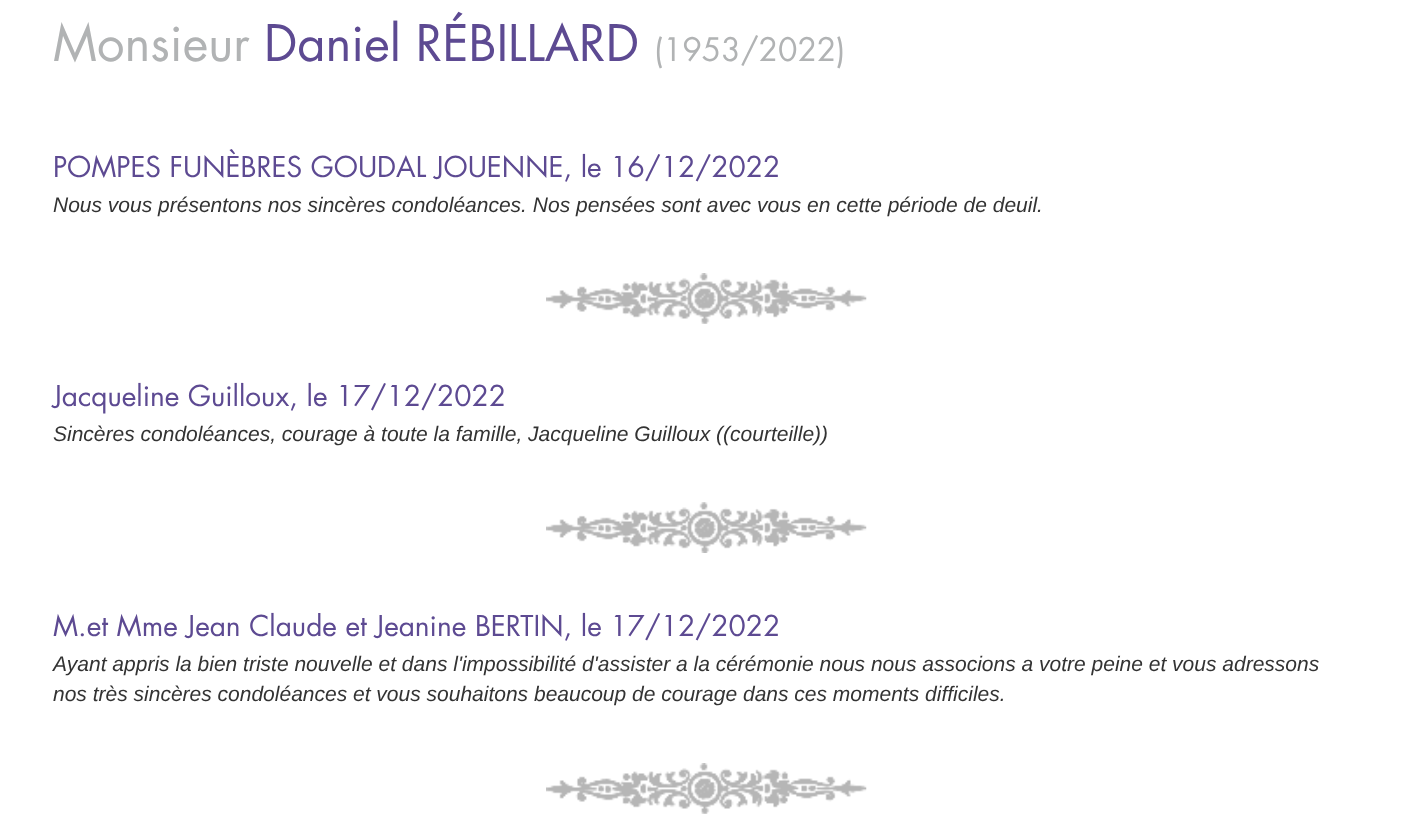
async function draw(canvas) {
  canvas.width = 1411;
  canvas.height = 840;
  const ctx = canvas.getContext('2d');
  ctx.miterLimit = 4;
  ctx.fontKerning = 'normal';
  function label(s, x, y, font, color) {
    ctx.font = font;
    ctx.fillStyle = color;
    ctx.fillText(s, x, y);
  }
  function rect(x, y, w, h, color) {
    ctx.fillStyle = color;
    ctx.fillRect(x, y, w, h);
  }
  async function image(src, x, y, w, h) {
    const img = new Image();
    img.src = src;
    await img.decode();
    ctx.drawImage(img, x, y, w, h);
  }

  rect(0, 0, 1411, 840, '#fff');
  label('Monsieur', 53, 61, '49px Futura', '#b1b3b4');
  label('Daniel RÉBILLARD', 264, 61, '49px Futura', '#5d4a92');
  label('(1953/2022)', 654, 61, '31.5px Futura', '#b1b3b4');
  label('POMPES FUNÈBRES GOUDAL JOUENNE, le 16/12/2022', 53, 177, '28px Futura', '#5d4a92');
  label('Nous vous présentons nos sincères condoléances. Nos pensées sont avec vous en cette période de deuil.', 53, 212, 'italic 21px Liberation Sans', '#333');
  await image('assets/img1.png', 546, 273, 321, 51);
  label('Jacqueline Guilloux, le 17/12/2022', 53, 406, '28px Futura', '#5d4a92');
  label('Sincères condoléances, courage à toute la famille, Jacqueline Guilloux ((courteille))', 53, 441, 'italic 21px Liberation Sans', '#333');
  await image('assets/img2.png', 546, 502, 321, 51);
  label('M.et Mme Jean Claude et Jeanine BERTIN, le 17/12/2022', 53, 636, '28px Futura', '#5d4a92');
  label('Ayant appris la bien triste nouvelle et dans l\'impossibilité d\'assister a la cérémonie nous nous associons a votre peine et vous adressons', 53, 671, 'italic 21px Liberation Sans', '#333');
  label('nos très sincères condoléances et vous souhaitons beaucoup de courage dans ces moments difficiles.', 53, 701, 'italic 21px Liberation Sans', '#333');
  await image('assets/img1.png', 546, 763, 321, 51);
}

draw(document.querySelector('canvas'));
